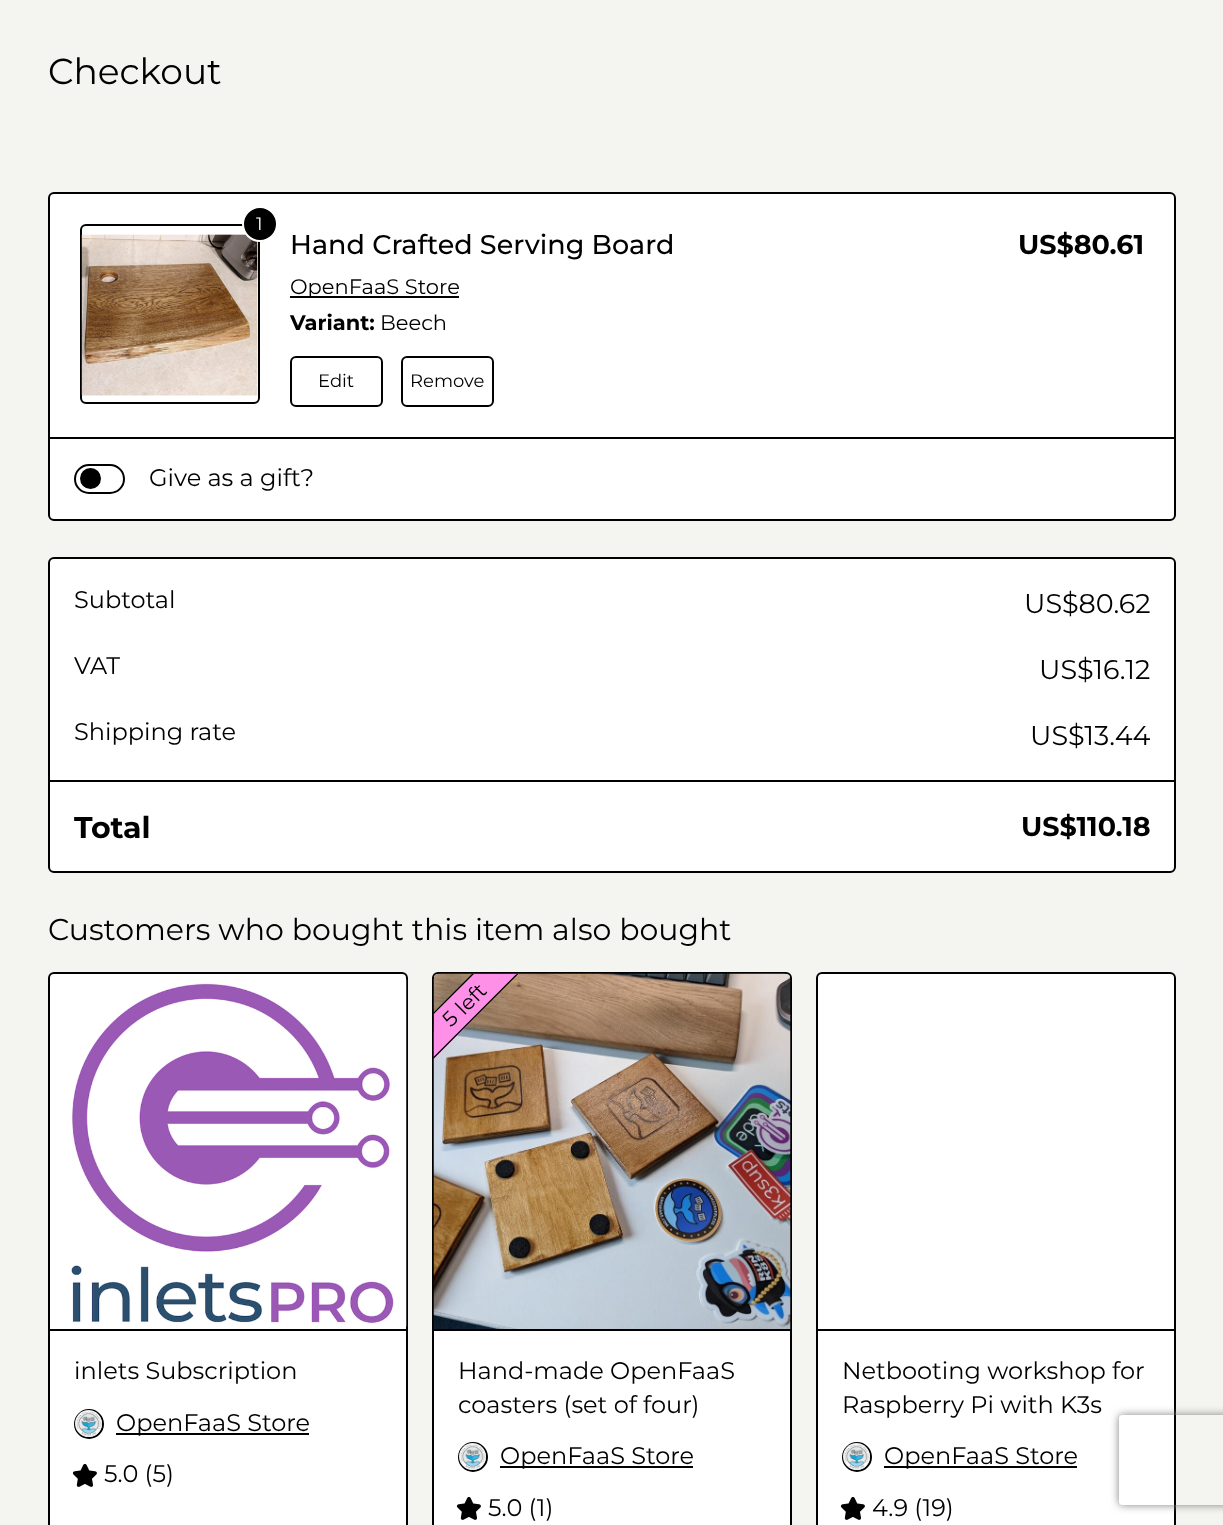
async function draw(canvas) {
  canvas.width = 1223;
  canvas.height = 1525;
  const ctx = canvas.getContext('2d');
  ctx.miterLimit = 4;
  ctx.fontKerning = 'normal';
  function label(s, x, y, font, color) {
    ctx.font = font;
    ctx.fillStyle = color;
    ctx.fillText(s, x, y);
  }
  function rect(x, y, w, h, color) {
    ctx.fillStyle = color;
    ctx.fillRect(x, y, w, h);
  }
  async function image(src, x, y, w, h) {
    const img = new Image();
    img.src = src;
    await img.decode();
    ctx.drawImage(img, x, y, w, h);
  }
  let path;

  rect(0, 0, 1223, 1525, '#f4f4f0');
  label('Checkout', 48, 84, '36px Montserrat', '#000');
  ctx.fillStyle = '#fff';
  ctx.beginPath();
  ctx.roundRect(49, 193, 1126, 327, 5);
  ctx.fill();
  ctx.strokeStyle = '#000';
  ctx.lineWidth = 2;
  ctx.stroke();
  ctx.beginPath();
  ctx.roundRect(81, 225, 178, 178, 5);
  ctx.stroke();
  await image('assets/img1.png', 81, 234, 177, 162);
  ctx.fillStyle = '#000';
  ctx.beginPath();
  ctx.arc(260, 224, 17, 0, 2 * Math.PI);
  ctx.fill();
  ctx.strokeStyle = '#fff';
  ctx.stroke();
  label('1', 256, 230, '18px Montserrat', '#fff');
  label('Hand Crafted Serving Board', 290, 254, '500 27px Montserrat', '#000');
  rect(290, 296, 169, 2, '#000');
  label('OpenFaaS Store', 290, 294, '21px Montserrat', '#000');
  label('Variant:', 290, 330, 'bold 21px Montserrat', '#000');
  label('Beech', 380, 330, '21px Montserrat', '#000');
  ctx.beginPath();
  ctx.roundRect(291, 357, 91, 49, 5);
  ctx.strokeStyle = '#000';
  ctx.stroke();
  label('Edit', 318, 387, '18px Montserrat', '#000');
  ctx.beginPath();
  ctx.roundRect(402, 357, 91, 49, 5);
  ctx.stroke();
  label('Remove', 410, 387, '18px Montserrat', '#000');
  label('US$80.61', 1018, 254, 'bold 27px Montserrat', '#000');
  rect(50, 437, 1125, 2, '#000');
  ctx.beginPath();
  ctx.roundRect(75, 465, 49, 28, 14);
  ctx.stroke();
  ctx.beginPath();
  ctx.arc(90.5, 478.5, 10.5, 0, 2 * Math.PI);
  ctx.fill();
  label('Give as a gift?', 149, 486, '24px Montserrat', '#000');
  ctx.fillStyle = '#fff';
  ctx.beginPath();
  ctx.roundRect(49, 558, 1126, 314, 5);
  ctx.fill();
  ctx.stroke();
  label('Subtotal', 74, 608, '24px Montserrat', '#000');
  label('US$80.62', 1024, 613, '27px Montserrat', '#000');
  label('VAT', 74, 674, '24px Montserrat', '#000');
  label('US$16.12', 1039, 679, '27px Montserrat', '#000');
  label('Shipping rate', 74, 740, '24px Montserrat', '#000');
  label('US$13.44', 1030, 745, '27px Montserrat', '#000');
  rect(50, 780, 1125, 2, '#000');
  label('Total', 74, 838, 'bold 30px Montserrat', '#000');
  label('US$110.18', 1021, 836, 'bold 27px Montserrat', '#000');
  label('Customers who bought this item also bought', 48, 940, '30px Montserrat', '#000');
  ctx.fillStyle = '#fff';
  path = new Path2D('M54 972H402C405.5 972 408 974.5 408 978V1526H48V978C48 974.5 50.5 972 54 972Z');
  ctx.fill(path);
  ctx.beginPath();
  ctx.roundRect(49, 973, 358, 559, 5);
  ctx.stroke();
  rect(50, 1329, 357, 2, '#000');
  await image('assets/img2.png', 71, 979, 336, 348);
  label('inlets Subscription', 74, 1379, '24px Montserrat', '#000');
  ctx.beginPath();
  ctx.arc(89, 1424, 14, 0, 2 * Math.PI);
  ctx.stroke();
  await image('assets/img3.png', 75, 1410, 27, 27);
  rect(116, 1433, 193, 2, '#000');
  label('OpenFaaS Store', 116, 1431, '24px Montserrat', '#000');
  await image('assets/img4.png', 72, 1463, 25, 24);
  label('5.0 (5)', 104, 1482, '24px Montserrat', '#000');
  ctx.fillStyle = '#fff';
  path = new Path2D('M438 972H786C789.5 972 792 974.5 792 978V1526H432V978C432 974.5 434.5 972 438 972Z');
  ctx.fill(path);
  ctx.beginPath();
  ctx.roundRect(433, 973, 358, 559, 5);
  ctx.stroke();
  rect(434, 1329, 357, 2, '#000');
  await image('assets/img5.png', 433, 973, 358, 356);
  ctx.fillStyle = '#ff90e8';
  path = new Path2D('M434 1059V1012L472 974H518Z');
  ctx.fill(path);
  ctx.save();
  path = new Path2D('M433.5 1012.5L471.5 974H518.5L433.5 1059Z');
  ctx.clip(path);
  path = new Path2D('M411 1035.5L495 952L517.5 974L433.5 1058Z');
  ctx.lineWidth = 1.5;
  ctx.stroke(path);
  ctx.restore();
  ctx.font = '21px Montserrat';
  ctx.fillStyle = '#000';
  ctx.save();
  ctx.translate(464, 1016);
  ctx.rotate(-45 * Math.PI / 180);
  ctx.fillText('left', 0, 0);
  ctx.restore();
  ctx.save();
  ctx.translate(451, 1028);
  ctx.rotate(-45 * Math.PI / 180);
  ctx.fillText('5', 0, 0);
  ctx.restore();
  label('Hand-made OpenFaaS', 458, 1379, '24px Montserrat', '#000');
  label('coasters (set of four)', 458, 1413, '24px Montserrat', '#000');
  ctx.beginPath();
  ctx.arc(473, 1457, 14, 0, 2 * Math.PI);
  ctx.stroke();
  await image('assets/img6.png', 459, 1443, 27, 27);
  rect(500, 1466, 193, 2, '#000');
  label('OpenFaaS Store', 500, 1464, '24px Montserrat', '#000');
  await image('assets/img4.png', 456, 1496, 25, 24);
  label('5.0 (1)', 488, 1516, '24px Montserrat', '#000');
  ctx.fillStyle = '#fff';
  path = new Path2D('M822 972H1170C1173.5 972 1176 974.5 1176 978V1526H816V978C816 974.5 818.5 972 822 972Z');
  ctx.fill(path);
  ctx.beginPath();
  ctx.roundRect(817, 973, 358, 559, 5);
  ctx.stroke();
  rect(818, 1329, 357, 2, '#000');
  label('Netbooting workshop for', 842, 1379, '24px Montserrat', '#000');
  label('Raspberry Pi with K3s', 842, 1413, '24px Montserrat', '#000');
  ctx.beginPath();
  ctx.arc(857, 1457, 14, 0, 2 * Math.PI);
  ctx.stroke();
  await image('assets/img7.png', 843, 1443, 27, 27);
  rect(884, 1466, 193, 2, '#000');
  label('OpenFaaS Store', 884, 1464, '24px Montserrat', '#000');
  await image('assets/img4.png', 840, 1496, 25, 24);
  label('4.9 (19)', 872, 1516, '24px Montserrat', '#000');
  ctx.save();
  path = new Path2D('M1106 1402H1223V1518H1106ZM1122 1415H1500C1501.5 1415 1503 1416.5 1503 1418V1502C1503 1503.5 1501.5 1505 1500 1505H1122C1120.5 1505 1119 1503.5 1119 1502V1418C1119 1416.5 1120.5 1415 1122 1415Z');
  ctx.clip(path, 'evenodd');
  ctx.fillStyle = '#808080';
  ctx.filter = 'blur(4px)';
  ctx.beginPath();
  ctx.roundRect(1119, 1415, 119, 90, 3);
  ctx.fill();
  ctx.filter = 'none';
  ctx.restore();
}

draw(document.querySelector('canvas'));
